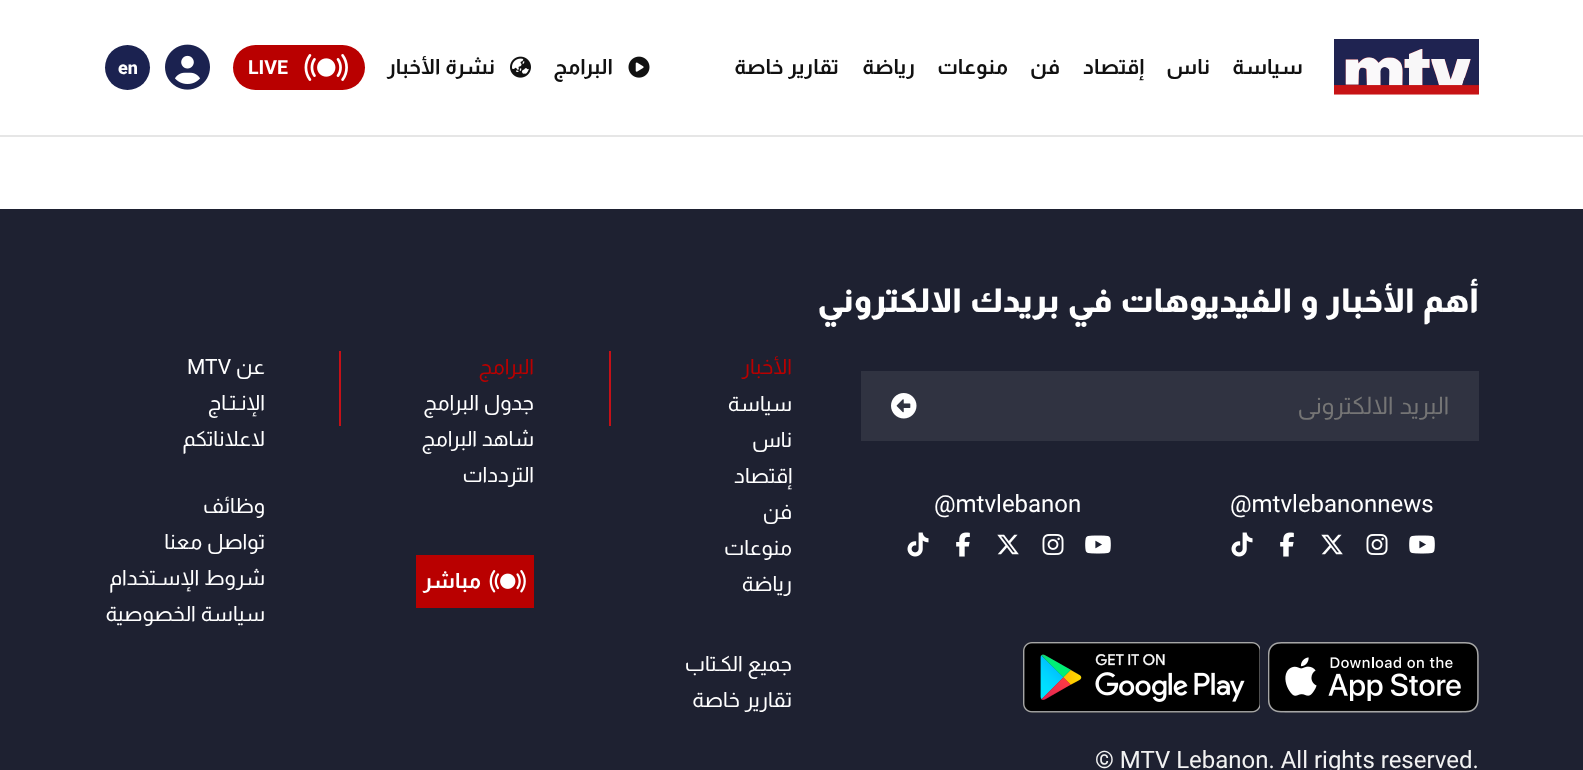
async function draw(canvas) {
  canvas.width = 1583;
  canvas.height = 770;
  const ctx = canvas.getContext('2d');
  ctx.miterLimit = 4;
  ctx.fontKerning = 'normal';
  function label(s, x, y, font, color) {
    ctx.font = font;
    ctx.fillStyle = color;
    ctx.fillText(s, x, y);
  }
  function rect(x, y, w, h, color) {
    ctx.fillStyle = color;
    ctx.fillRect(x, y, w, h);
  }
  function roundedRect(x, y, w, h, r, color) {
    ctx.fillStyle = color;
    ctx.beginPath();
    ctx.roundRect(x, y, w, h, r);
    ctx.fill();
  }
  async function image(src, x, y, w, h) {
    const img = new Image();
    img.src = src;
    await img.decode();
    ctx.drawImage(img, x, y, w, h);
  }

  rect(0, 0, 1583, 770, '#fff');
  rect(0, 135, 1583, 2, '#e6e6e6');
  await image('assets/img1.png', 1334, 39, 145, 56);
  ctx.direction = 'rtl';
  label('سياسة', 1303, 74, 'bold 21px Almarai', '#111');
  label('ناس', 1210, 74, 'bold 21px Almarai', '#111');
  label('إقتصاد', 1144, 74, 'bold 21px Almarai', '#111');
  label('فن', 1060, 74, 'bold 21px Almarai', '#111');
  label('منوعات', 1008, 74, 'bold 21px Almarai', '#111');
  label('رياضة', 915, 74, 'bold 21px Almarai', '#111');
  ctx.wordSpacing = '1px';
  label('تقارير خاصة', 839, 74, 'bold 21px Almarai', '#111');
  await image('assets/img2.png', 628, 56, 22, 22);
  ctx.wordSpacing = '0px';
  label('البرامج', 613, 74, 'bold 21px Almarai', '#111');
  await image('assets/img3.png', 510, 56, 21, 22);
  ctx.wordSpacing = '1px';
  label('نشرة الأخبار', 495, 74, 'bold 21px Almarai', '#111');
  roundedRect(233, 45, 132, 45, 22.5, '#b90000');
  await image('assets/img4.png', 304, 54, 44, 27);
  ctx.wordSpacing = '0px';
  ctx.direction = 'ltr';
  label('LIVE', 248, 74, 'bold 19.5px Roboto', '#fff');
  await image('assets/img5.png', 165, 44, 45, 46);
  ctx.fillStyle = '#1b2250';
  ctx.beginPath();
  ctx.arc(127.5, 67.5, 22.5, 0, 2 * Math.PI);
  ctx.fill();
  label('en', 118, 74, '800 18px Roboto', '#fff');
  rect(0, 209, 1583, 561, '#1e2131');
  ctx.wordSpacing = '2px';
  ctx.direction = 'rtl';
  label('أهم الأخبار و الفيديوهات في بريدك الالكتروني', 1479, 312, '800 33px Almarai', '#fff');
  rect(861, 371, 618, 70, '#303341');
  ctx.save();
  ctx.beginPath();
  ctx.rect(936, 392, 513, 28);
  ctx.clip();
  label('البريد الالكتروني', 1449, 414, '24px Almarai', '#757575');
  ctx.restore();
  await image('assets/img6.png', 891, 393, 26, 26);
  ctx.wordSpacing = '0px';
  ctx.direction = 'ltr';
  label('@mtvlebanonnews', 1230, 512, '24px Roboto', '#fff');
  await image('assets/img7.png', 1409, 535, 26, 19);
  await image('assets/img8.png', 1366, 534, 22, 21);
  await image('assets/img9.png', 1321, 534, 22, 21);
  await image('assets/img10.png', 1280, 532, 14, 25);
  await image('assets/img11.png', 1231, 532, 22, 25);
  label('@mtvlebanon', 934, 512, '24px Roboto', '#fff');
  await image('assets/img7.png', 1085, 535, 26, 19);
  await image('assets/img8.png', 1042, 534, 22, 21);
  await image('assets/img9.png', 997, 534, 22, 21);
  await image('assets/img10.png', 956, 532, 14, 25);
  await image('assets/img11.png', 907, 532, 22, 25);
  await image('assets/img12.png', 1268, 642, 211, 71);
  await image('assets/img13.png', 1023, 642, 237, 71);
  label('© MTV Lebanon. All rights reserved.', 1095, 768, '24px Roboto', '#f2f2f2');
  ctx.direction = 'rtl';
  label('الأخبار', 792, 374, '21px Almarai', '#b90000');
  label('سياسة', 792, 411, '21px Almarai', '#fff');
  label('ناس', 792, 447, '21px Almarai', '#fff');
  label('إقتصاد', 792, 483, '21px Almarai', '#fff');
  label('فن', 792, 519, '21px Almarai', '#fff');
  label('منوعات', 792, 555, '21px Almarai', '#fff');
  label('رياضة', 792, 591, '21px Almarai', '#fff');
  ctx.wordSpacing = '1px';
  label('جميع الكـتاب', 792, 671, '21px Almarai', '#fff');
  label('تقارير خاصة', 792, 707, '21px Almarai', '#fff');
  rect(609, 351, 2, 75, '#c51017');
  ctx.wordSpacing = '0px';
  label('البرامج', 534, 374, '21px Almarai', '#b90000');
  ctx.wordSpacing = '1px';
  label('جدول البرامج', 534, 410, '21px Almarai', '#fff');
  label('شاهد البرامج', 534, 446, '21px Almarai', '#fff');
  ctx.wordSpacing = '0px';
  label('الترددات', 534, 482, '21px Almarai', '#fff');
  rect(416, 555, 118, 53, '#b90000');
  await image('assets/img14.png', 489, 570, 37, 23);
  label('مباشر', 481, 588, 'bold 21px Almarai', '#fff');
  rect(339, 351, 2, 75, '#c51017');
  label('عن', 265, 374, '21px Almarai', '#fff');
  ctx.direction = 'ltr';
  label('MTV', 187, 374, '21px Roboto', '#fff');
  ctx.direction = 'rtl';
  label('الإنـتـاج', 265, 410, '21px Almarai', '#fff');
  label('لاعلاناتكم', 265, 446, '21px Almarai', '#fff');
  label('وظائف', 265, 513, '21px Almarai', '#fff');
  ctx.wordSpacing = '1px';
  label('تواصل معنا', 265, 549, '21px Almarai', '#fff');
  label('شروط الإسـتخدام', 265, 585, '21px Almarai', '#fff');
  label('سياسة الخصوصية', 265, 621, '21px Almarai', '#fff');
}

draw(document.querySelector('canvas'));
